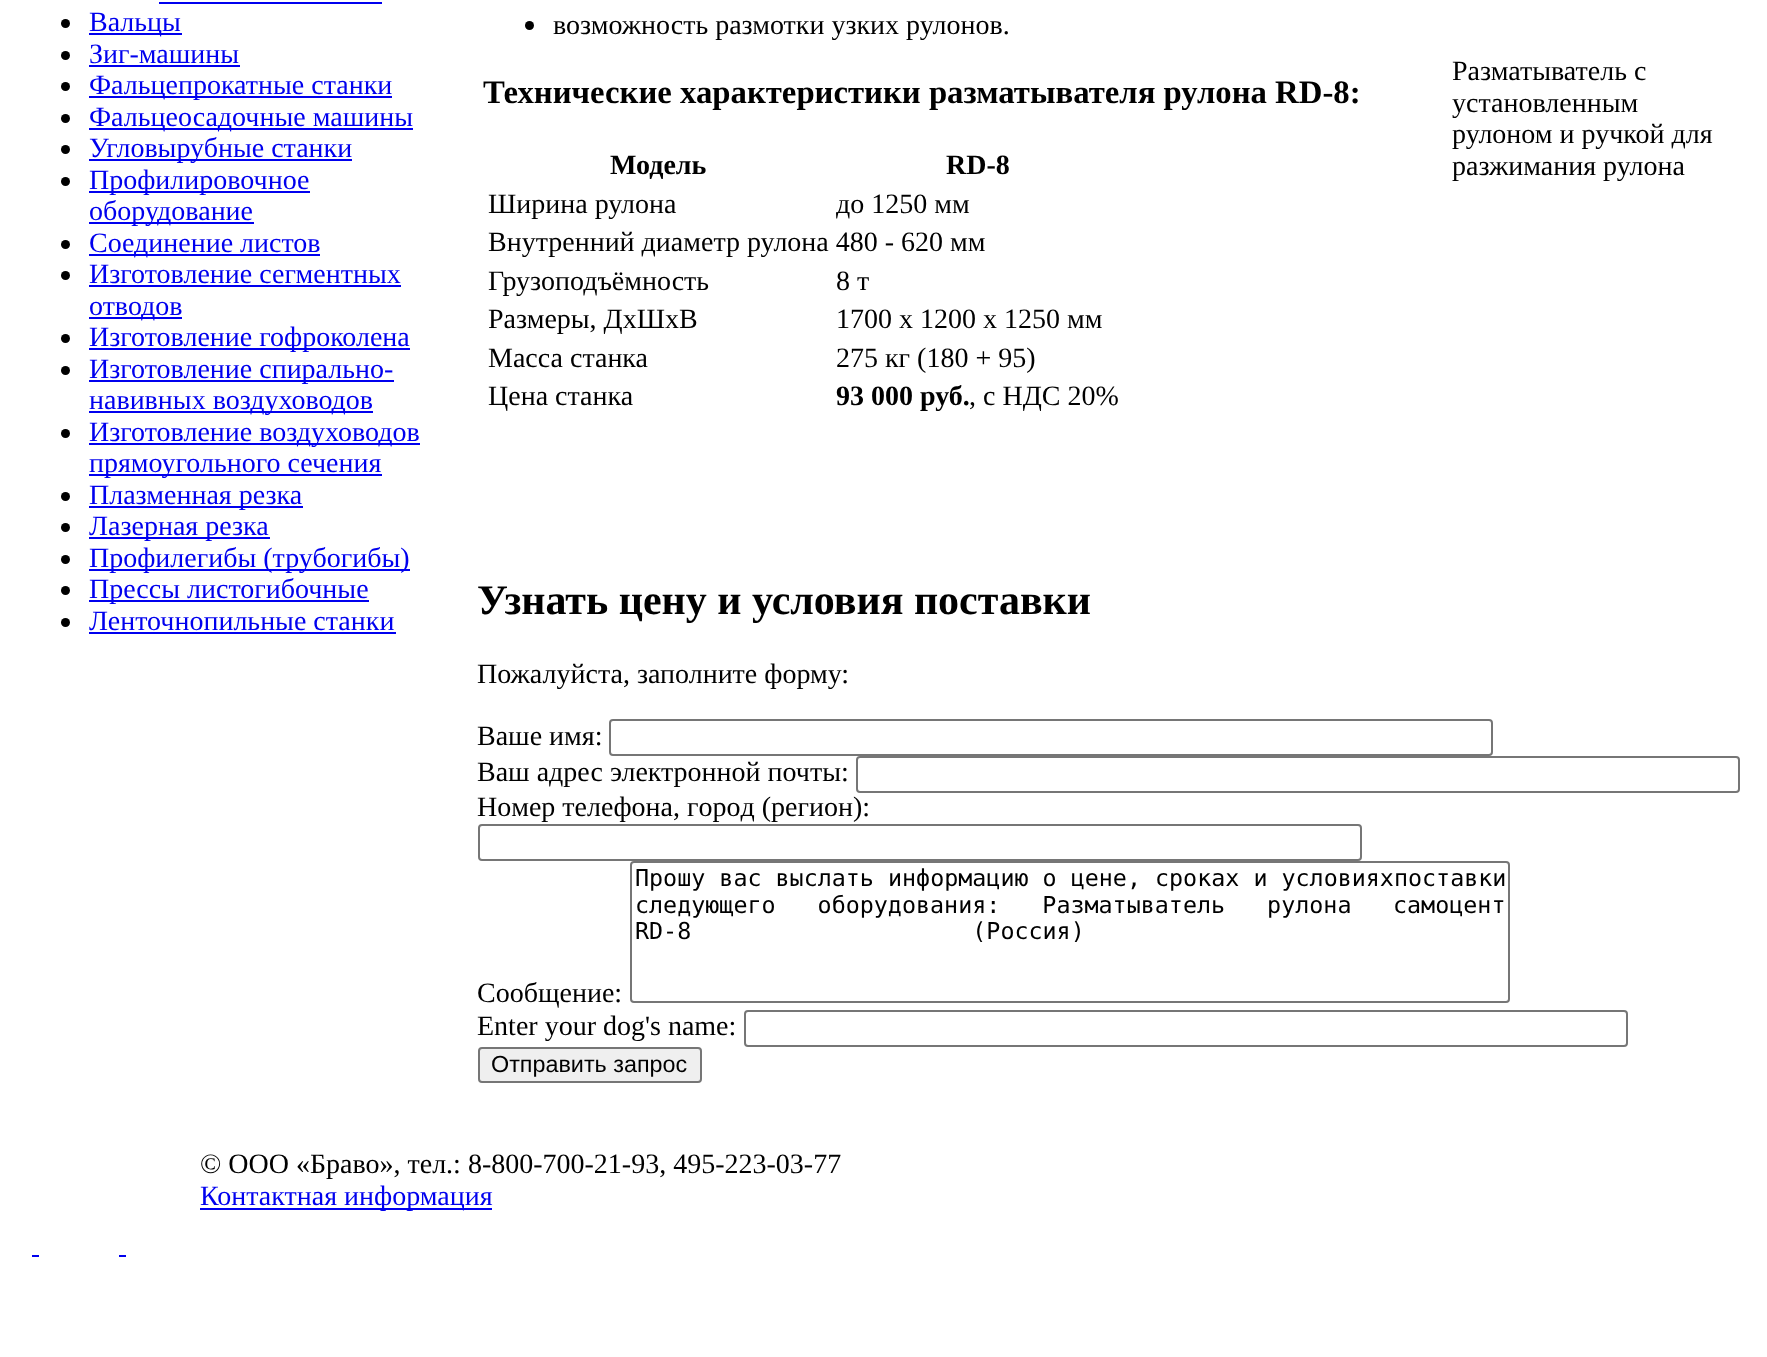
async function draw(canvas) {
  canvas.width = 1767;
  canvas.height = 1357;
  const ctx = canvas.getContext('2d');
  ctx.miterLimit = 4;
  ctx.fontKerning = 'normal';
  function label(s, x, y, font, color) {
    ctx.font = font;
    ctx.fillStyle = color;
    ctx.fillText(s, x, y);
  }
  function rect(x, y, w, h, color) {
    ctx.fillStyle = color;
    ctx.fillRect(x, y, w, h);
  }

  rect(0, 0, 1767, 1357, '#fff');
  rect(159, 2, 223, 2, '#00e');
  ctx.fillStyle = '#000';
  ctx.beginPath();
  ctx.arc(65.5, 23.5, 4.5, 0, 2 * Math.PI);
  ctx.fill();
  rect(89, 33, 93, 2, '#00e');
  label('Вальцы', 89, 31, '28px Liberation Serif', '#00e');
  ctx.fillStyle = '#000';
  ctx.beginPath();
  ctx.arc(65.5, 55.5, 4.5, 0, 2 * Math.PI);
  ctx.fill();
  label('Зиг-машины', 89, 63, '28px Liberation Serif', '#00e');
  rect(89, 65, 151, 2, '#00e');
  ctx.fillStyle = '#000';
  ctx.beginPath();
  ctx.arc(65.5, 86.5, 4.5, 0, 2 * Math.PI);
  ctx.fill();
  rect(89, 96, 303, 2, '#00e');
  label('Фальцепрокатные станки', 89, 94, '28px Liberation Serif', '#00e');
  ctx.fillStyle = '#000';
  ctx.beginPath();
  ctx.arc(65.5, 118.5, 4.5, 0, 2 * Math.PI);
  ctx.fill();
  rect(89, 128, 324, 2, '#00e');
  label('Фальцеосадочные машины', 89, 126, '28px Liberation Serif', '#00e');
  ctx.fillStyle = '#000';
  ctx.beginPath();
  ctx.arc(65.5, 149.5, 4.5, 0, 2 * Math.PI);
  ctx.fill();
  rect(89, 159, 263, 2, '#00e');
  label('Угловырубные станки', 89, 157, '28px Liberation Serif', '#00e');
  ctx.fillStyle = '#000';
  ctx.beginPath();
  ctx.arc(65.5, 181.5, 4.5, 0, 2 * Math.PI);
  ctx.fill();
  rect(89, 191, 221, 2, '#00e');
  label('Профилировочное', 89, 189, '28px Liberation Serif', '#00e');
  rect(89, 222, 165, 2, '#00e');
  label('оборудование', 89, 220, '28px Liberation Serif', '#00e');
  ctx.fillStyle = '#000';
  ctx.beginPath();
  ctx.arc(65.5, 244.5, 4.5, 0, 2 * Math.PI);
  ctx.fill();
  rect(89, 254, 231, 2, '#00e');
  label('Соединение листов', 89, 252, '28px Liberation Serif', '#00e');
  ctx.fillStyle = '#000';
  ctx.beginPath();
  ctx.arc(65.5, 275.5, 4.5, 0, 2 * Math.PI);
  ctx.fill();
  label('Изготовление сегментных', 89, 283, '28px Liberation Serif', '#00e');
  rect(89, 285, 312, 2, '#00e');
  rect(89, 317, 93, 2, '#00e');
  label('отводов', 89, 315, '28px Liberation Serif', '#00e');
  ctx.fillStyle = '#000';
  ctx.beginPath();
  ctx.arc(65.5, 338.5, 4.5, 0, 2 * Math.PI);
  ctx.fill();
  rect(89, 348, 321, 2, '#00e');
  label('Изготовление гофроколена', 89, 346, '28px Liberation Serif', '#00e');
  ctx.fillStyle = '#000';
  ctx.beginPath();
  ctx.arc(65.5, 370.5, 4.5, 0, 2 * Math.PI);
  ctx.fill();
  rect(89, 380, 305, 2, '#00e');
  label('Изготовление спирально-', 89, 378, '28px Liberation Serif', '#00e');
  rect(89, 411, 284, 2, '#00e');
  label('навивных воздуховодов', 89, 409, '28px Liberation Serif', '#00e');
  ctx.fillStyle = '#000';
  ctx.beginPath();
  ctx.arc(65.5, 433.5, 4.5, 0, 2 * Math.PI);
  ctx.fill();
  rect(89, 443, 331, 2, '#00e');
  label('Изготовление воздуховодов', 89, 441, '28px Liberation Serif', '#00e');
  rect(89, 474, 293, 2, '#00e');
  label('прямоугольного сечения', 89, 472, '28px Liberation Serif', '#00e');
  ctx.fillStyle = '#000';
  ctx.beginPath();
  ctx.arc(65.5, 496.5, 4.5, 0, 2 * Math.PI);
  ctx.fill();
  rect(89, 506, 214, 2, '#00e');
  label('Плазменная резка', 89, 504, '28px Liberation Serif', '#00e');
  ctx.fillStyle = '#000';
  ctx.beginPath();
  ctx.arc(65.5, 527.5, 4.5, 0, 2 * Math.PI);
  ctx.fill();
  rect(89, 537, 181, 2, '#00e');
  label('Лазерная резка', 89, 535, '28px Liberation Serif', '#00e');
  ctx.fillStyle = '#000';
  ctx.beginPath();
  ctx.arc(65.5, 559.5, 4.5, 0, 2 * Math.PI);
  ctx.fill();
  rect(89, 569, 321, 2, '#00e');
  label('Профилегибы (трубогибы)', 89, 567, '28px Liberation Serif', '#00e');
  ctx.fillStyle = '#000';
  ctx.beginPath();
  ctx.arc(65.5, 590.5, 4.5, 0, 2 * Math.PI);
  ctx.fill();
  rect(89, 600, 280, 2, '#00e');
  label('Прессы листогибочные', 89, 598, '28px Liberation Serif', '#00e');
  ctx.fillStyle = '#000';
  ctx.beginPath();
  ctx.arc(65.5, 622.5, 4.5, 0, 2 * Math.PI);
  ctx.fill();
  label('Ленточнопильные станки', 89, 630, '28px Liberation Serif', '#00e');
  rect(89, 632, 307, 2, '#00e');
  ctx.fillStyle = '#000';
  ctx.beginPath();
  ctx.arc(529.5, 25.5, 4.5, 0, 2 * Math.PI);
  ctx.fill();
  label('возможность размотки узких рулонов.', 553, 34, '28px Liberation Serif', '#000');
  label('Технические характеристики разматывателя рулона RD-8:', 483, 103, 'bold 32.75px Liberation Serif', '#000');
  label('Модель', 610, 174, 'bold 28px Liberation Serif', '#000');
  label('RD-8', 946, 174, 'bold 28px Liberation Serif', '#000');
  label('Ширина рулона', 488, 213, '28px Liberation Serif', '#000');
  label('до 1250 мм', 836, 213, '28px Liberation Serif', '#000');
  label('Внутренний диаметр рулона 480 - 620 мм', 488, 251, '28px Liberation Serif', '#000');
  label('Грузоподъёмность', 488, 290, '28px Liberation Serif', '#000');
  label('8 т', 836, 290, '28px Liberation Serif', '#000');
  label('Размеры, ДхШхВ', 488, 328, '28px Liberation Serif', '#000');
  label('1700 х 1200 х 1250 мм', 836, 328, '28px Liberation Serif', '#000');
  label('Масса станка', 488, 367, '28px Liberation Serif', '#000');
  label('275 кг (180 + 95)', 836, 367, '28px Liberation Serif', '#000');
  label('Цена станка', 488, 405, '28px Liberation Serif', '#000');
  label('93 000 руб.', 836, 405, 'bold 28px Liberation Serif', '#000');
  label(', с НДС 20%', 969, 405, '28px Liberation Serif', '#000');
  label('Разматыватель с', 1452, 80, '28px Liberation Serif', '#000');
  label('установленным', 1452, 112, '28px Liberation Serif', '#000');
  label('рулоном и ручкой для', 1452, 143, '28px Liberation Serif', '#000');
  label('разжимания рулона', 1452, 175, '28px Liberation Serif', '#000');
  label('Узнать цену и условия поставки', 477, 614, 'bold 42px Liberation Serif', '#000');
  label('Пожалуйста, заполните форму:', 477, 683, '28px Liberation Serif', '#000');
  label('Ваше имя:', 477, 745, '28px Liberation Serif', '#000');
  ctx.beginPath();
  ctx.roundRect(610, 720, 882, 35, 3);
  ctx.strokeStyle = '#767676';
  ctx.lineWidth = 2;
  ctx.stroke();
  label('Ваш адрес электронной почты:', 477, 781, '28px Liberation Serif', '#000');
  ctx.beginPath();
  ctx.roundRect(857, 757, 882, 35, 3);
  ctx.stroke();
  label('Hoмep телeфoна, гopoд (региoн):', 477, 816, '28px Liberation Serif', '#000');
  ctx.beginPath();
  ctx.roundRect(479, 825, 882, 35, 3);
  ctx.stroke();
  ctx.beginPath();
  ctx.roundRect(631, 862, 878, 140, 3);
  ctx.stroke();
  label('Прошу вас выслать информацию о цене, сроках и условияхпоставки', 635, 886, '23.35px DejaVu Sans Mono', '#000');
  ctx.wordSpacing = '28px';
  label('следующего оборудования: Разматыватель рулона', 635, 913, '23.35px DejaVu Sans Mono', '#000');
  ctx.wordSpacing = '0px';
  label('самоцент', 1393, 913, '23.35px DejaVu Sans Mono', '#000');
  ctx.wordSpacing = '267px';
  label('RD-8 (Россия)', 635, 939, '23.35px DejaVu Sans Mono', '#000');
  ctx.wordSpacing = '0px';
  label('Сообщение:', 477, 1002, '28px Liberation Serif', '#000');
  label('Enter your dog\'s name:', 477, 1035, '28px Liberation Serif', '#000');
  ctx.beginPath();
  ctx.roundRect(745, 1011, 882, 35, 3);
  ctx.stroke();
  ctx.fillStyle = '#efefef';
  ctx.beginPath();
  ctx.roundRect(479, 1048, 222, 34, 3);
  ctx.fill();
  ctx.stroke();
  label('Отправить запрос', 491, 1072, '23.35px Liberation Sans', '#000');
  label('© ООО «Браво», тел.: 8-800-700-21-93, 495-223-03-77', 200, 1173, '28px Liberation Serif', '#000');
  rect(200, 1208, 292, 2, '#00e');
  label('Контактная информация', 200, 1205, '28px Liberation Serif', '#00e');
  rect(32, 1255, 7, 2, '#00e');
  rect(119, 1255, 7, 2, '#00e');
}

draw(document.querySelector('canvas'));
